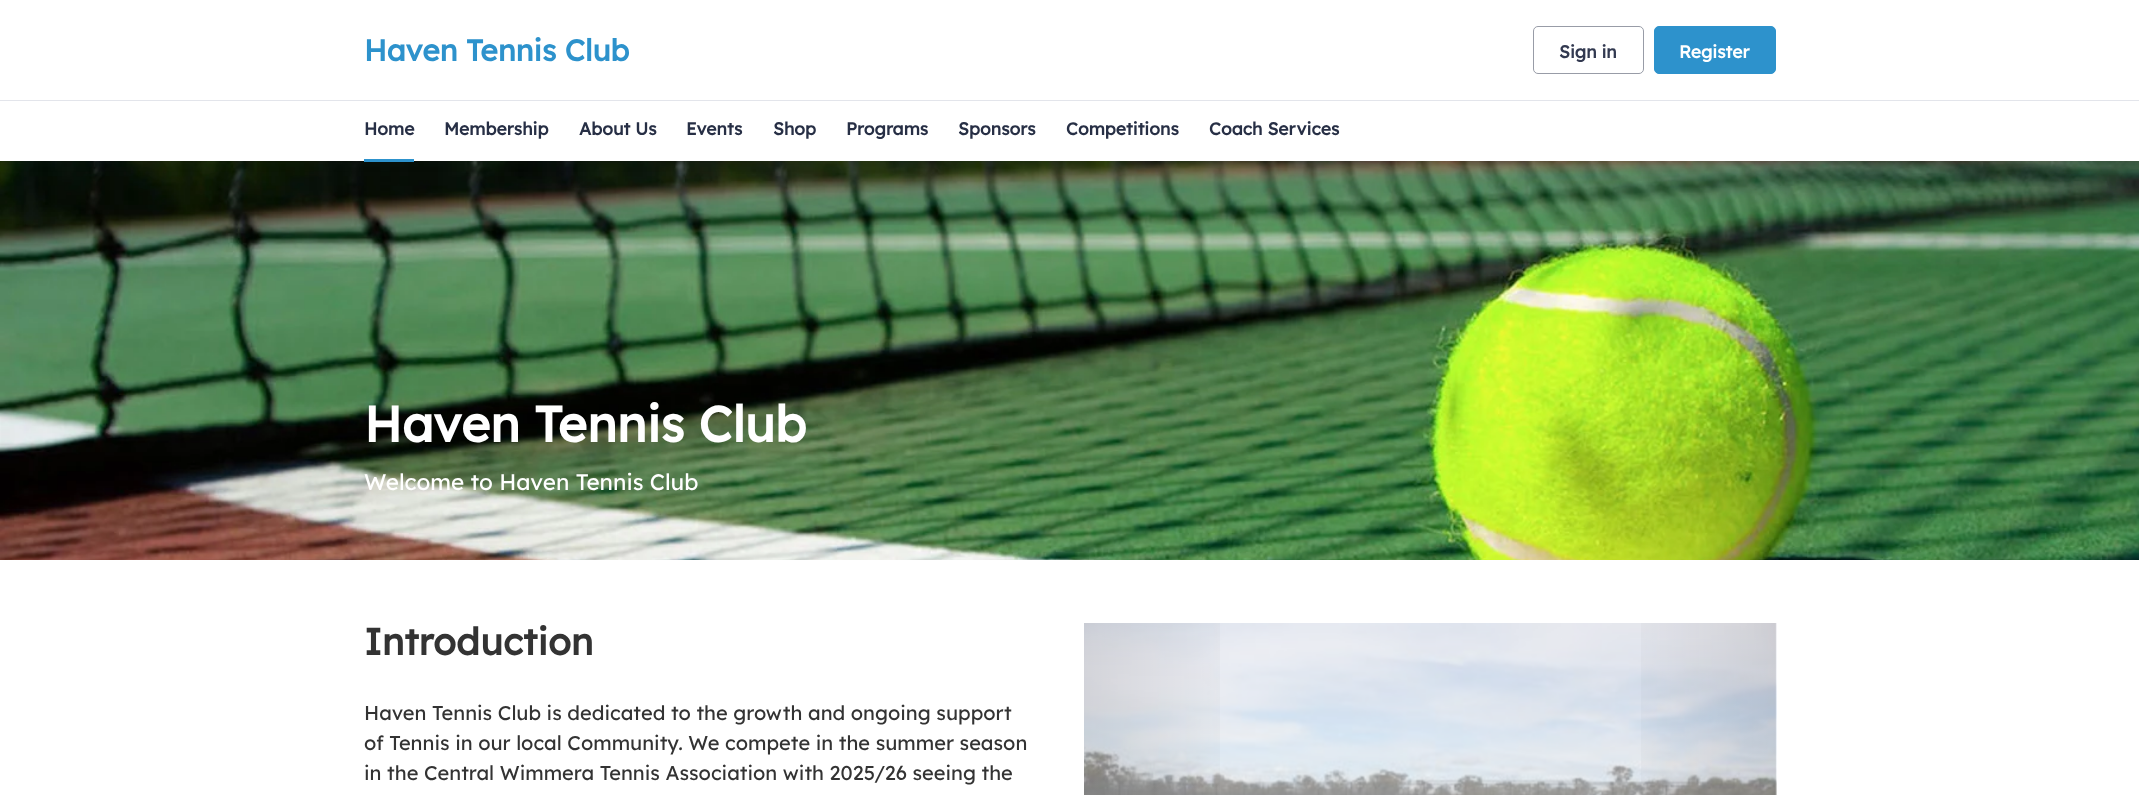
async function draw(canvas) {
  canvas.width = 2139;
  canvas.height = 795;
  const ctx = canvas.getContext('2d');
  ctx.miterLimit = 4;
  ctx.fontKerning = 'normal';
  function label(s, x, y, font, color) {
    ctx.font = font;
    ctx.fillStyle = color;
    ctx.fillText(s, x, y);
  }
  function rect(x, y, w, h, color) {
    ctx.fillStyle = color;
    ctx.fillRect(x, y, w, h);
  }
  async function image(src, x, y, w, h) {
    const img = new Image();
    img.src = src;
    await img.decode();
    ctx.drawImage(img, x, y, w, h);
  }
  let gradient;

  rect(0, 0, 2139, 795, '#fff');
  await image('assets/img1.png', 0, 161, 2139, 399);
  ctx.fillStyle = '#141d370f';
  ctx.filter = 'blur(4px)';
  ctx.beginPath();
  ctx.rect(0, 3, 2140, 161);
  ctx.fill();
  ctx.filter = 'none';
  rect(0, 0, 2139, 161, '#fff');
  label('Haven Tennis Club', 364, 61, 'bold 30px Lexend', '#2d92cc');
  ctx.beginPath();
  ctx.roundRect(1533.5, 26.5, 110, 47, 4.5);
  ctx.strokeStyle = '#989ca7';
  ctx.stroke();
  label('Sign in', 1559, 58, 'bold 17.5px Lexend', '#323950');
  ctx.fillStyle = '#2d92cc';
  ctx.beginPath();
  ctx.roundRect(1654.5, 26.5, 121, 47, 4.5);
  ctx.fill();
  ctx.strokeStyle = '#2d92cc';
  ctx.stroke();
  label('Register', 1679, 58, 'bold 17.5px Lexend', '#fff');
  rect(0, 100, 2139, 1, '#e3e5eb');
  rect(364, 159, 50, 3, '#2d92cc');
  label('Home', 364, 135, 'bold 17.5px Lexend', '#272f45');
  label('Membership', 444, 135, 'bold 17.5px Lexend', '#272f45');
  label('About Us', 579, 135, 'bold 17.5px Lexend', '#272f45');
  label('Events', 686, 135, 'bold 17.5px Lexend', '#272f45');
  label('Shop', 773, 135, 'bold 17.5px Lexend', '#272f45');
  label('Programs', 846, 135, 'bold 17.5px Lexend', '#272f45');
  label('Sponsors', 958, 135, 'bold 17.5px Lexend', '#272f45');
  label('Competitions', 1066, 135, 'bold 17.5px Lexend', '#272f45');
  label('Coach Services', 1209, 135, 'bold 17.5px Lexend', '#272f45');
  label('Haven Tennis Club', 364, 442, 'bold 50px Lexend', '#fff');
  label('Welcome to Haven Tennis Club', 364, 490, '22.5px Lexend', '#fff');
  label('Introduction', 364, 655, 'bold 37.5px Lexend', '#333');
  label('Haven Tennis Club is dedicated to the growth and ongoing support', 364, 720, '20px Lexend', '#333');
  label('of Tennis in our local Community. We compete in the summer season', 364, 750, '20px Lexend', '#333');
  label('in the Central Wimmera Tennis Association with 2025/26 seeing the', 364, 780, '20px Lexend', '#333');
  await image('assets/img2.png', 1084, 623, 693, 172);
  gradient = ctx.createLinearGradient(1084, 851, 1258, 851);
  gradient.addColorStop(0, '#0000001a');
  gradient.addColorStop(1, '#00000000');
  ctx.fillStyle = gradient;
  ctx.fillRect(1084, 623, 136, 172);
  gradient = ctx.createLinearGradient(1776, 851, 1604, 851);
  gradient.addColorStop(0, '#0000001a');
  gradient.addColorStop(1, '#00000000');
  ctx.fillStyle = gradient;
  ctx.fillRect(1641, 623, 135, 172);
}

draw(document.querySelector('canvas'));
